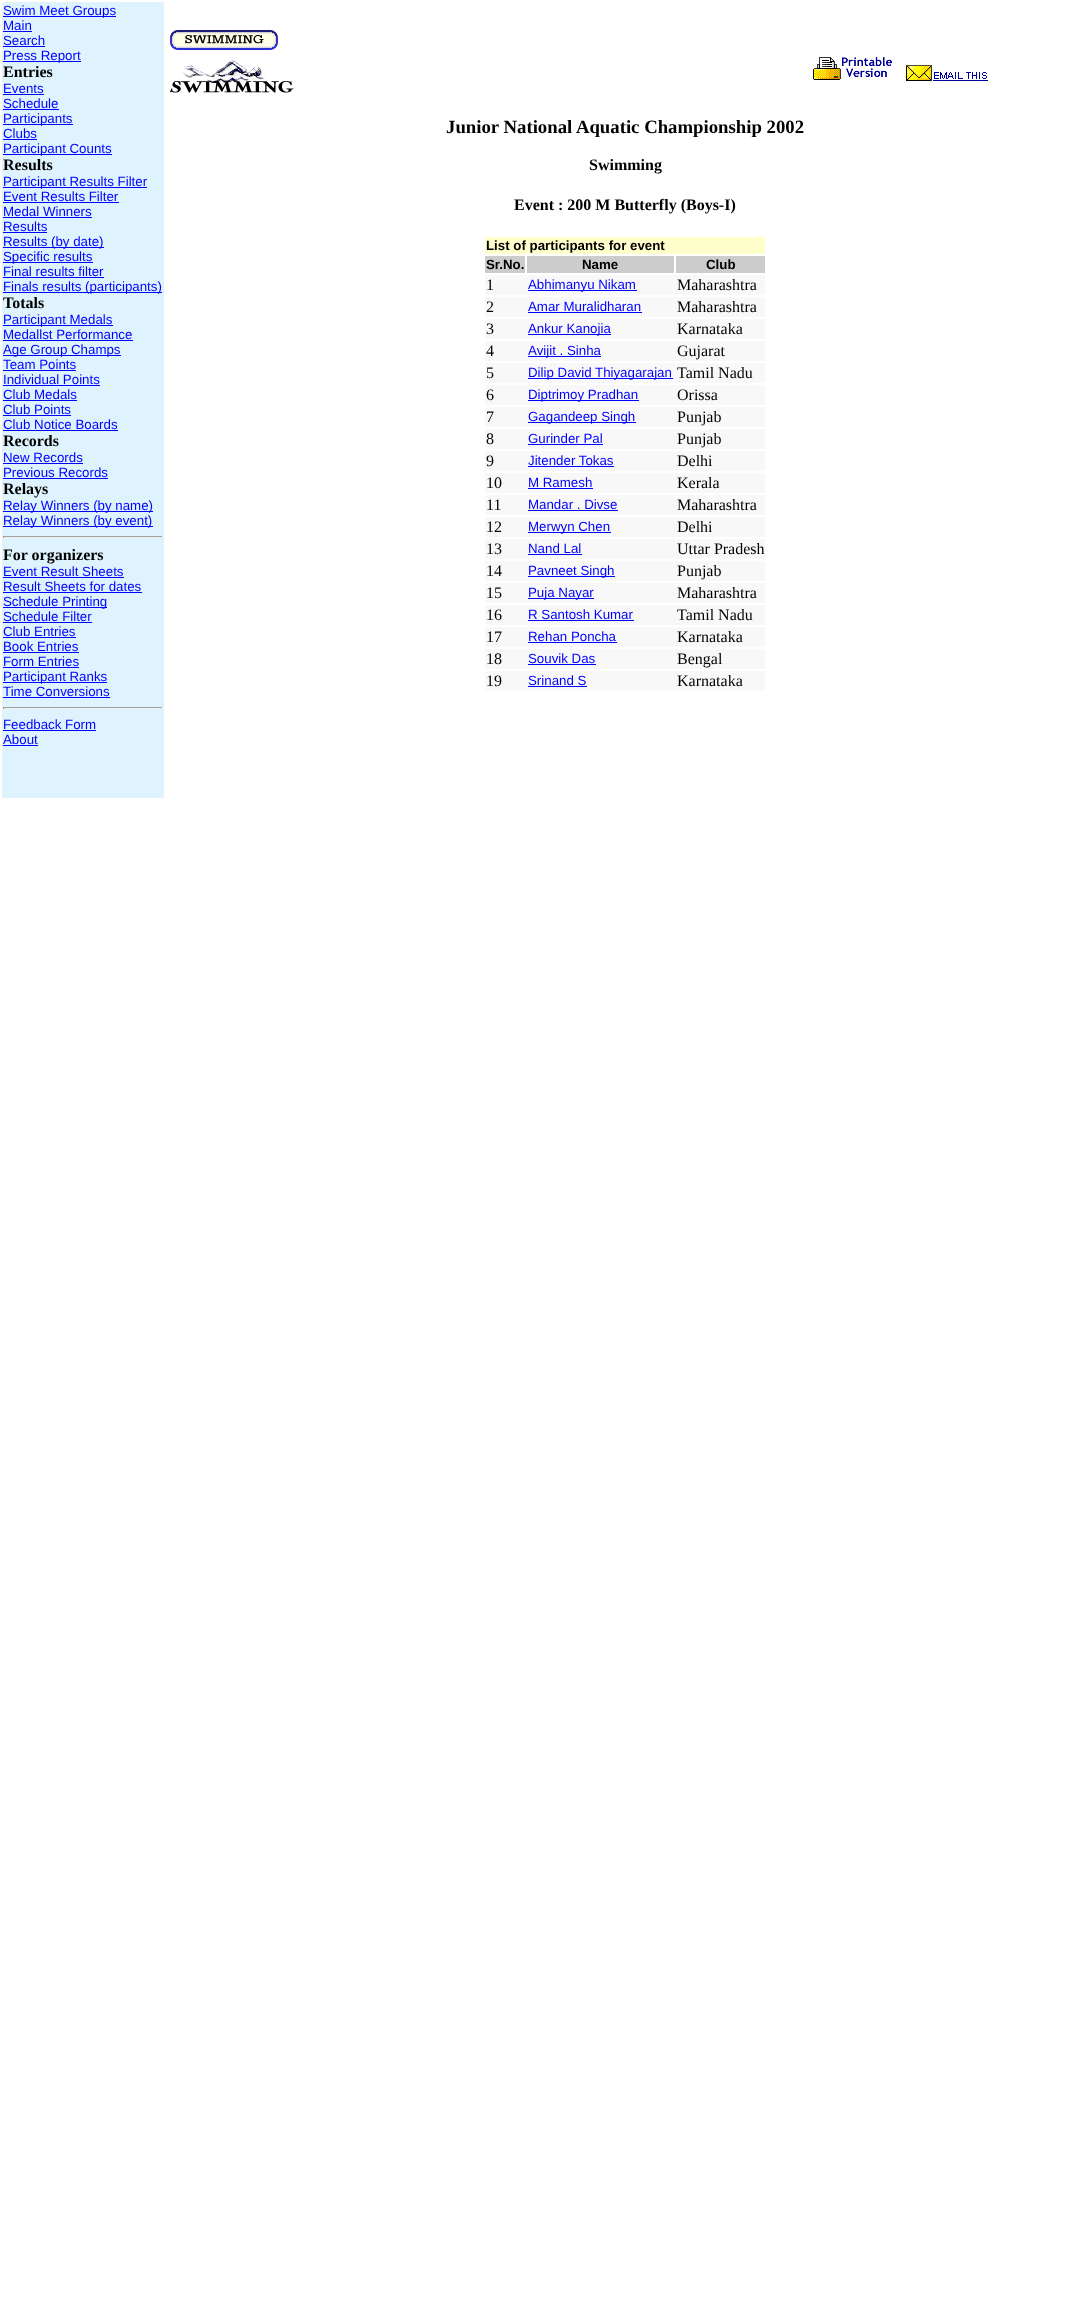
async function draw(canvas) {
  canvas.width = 1086;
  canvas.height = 2301;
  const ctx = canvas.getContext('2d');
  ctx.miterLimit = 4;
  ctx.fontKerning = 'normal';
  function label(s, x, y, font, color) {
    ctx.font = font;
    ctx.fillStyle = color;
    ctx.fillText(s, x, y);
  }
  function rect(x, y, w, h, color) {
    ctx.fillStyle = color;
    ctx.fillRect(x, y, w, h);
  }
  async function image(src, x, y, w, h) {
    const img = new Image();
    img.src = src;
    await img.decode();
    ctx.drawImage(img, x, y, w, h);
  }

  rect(0, 0, 1086, 2301, '#fff');
  rect(2, 2, 162, 796, '#def3fe');
  rect(3, 16, 113, 1, '#00f');
  label('Swim Meet Groups', 3, 15, '13.3px Liberation Sans', '#00f');
  label('Main', 3, 30, '13.3px Liberation Sans', '#00f');
  rect(3, 31, 29, 1, '#00f');
  label('Search', 3, 45, '13.3px Liberation Sans', '#00f');
  rect(3, 46, 42, 1, '#00f');
  rect(3, 61, 78, 1, '#00f');
  label('Press Report', 3, 60, '13.3px Liberation Sans', '#00f');
  label('Entries', 3, 77, 'bold 16px Liberation Serif', '#000');
  label('Events', 3, 93, '13.3px Liberation Sans', '#00f');
  rect(3, 94, 41, 1, '#00f');
  label('Schedule', 3, 108, '13.3px Liberation Sans', '#00f');
  rect(3, 109, 56, 1, '#00f');
  rect(3, 124, 70, 1, '#00f');
  label('Participants', 3, 123, '13.3px Liberation Sans', '#00f');
  label('Clubs', 3, 138, '13.3px Liberation Sans', '#00f');
  rect(3, 139, 34, 1, '#00f');
  rect(3, 154, 109, 1, '#00f');
  label('Participant Counts', 3, 153, '13.3px Liberation Sans', '#00f');
  label('Results', 3, 170, 'bold 16px Liberation Serif', '#000');
  rect(3, 187, 144, 1, '#00f');
  label('Participant Results Filter', 3, 186, '13.3px Liberation Sans', '#00f');
  label('Event Results Filter', 3, 201, '13.3px Liberation Sans', '#00f');
  rect(3, 202, 116, 1, '#00f');
  label('Medal Winners', 3, 216, '13.3px Liberation Sans', '#00f');
  rect(3, 217, 89, 1, '#00f');
  label('Results', 3, 231, '13.3px Liberation Sans', '#00f');
  rect(3, 232, 44, 1, '#00f');
  rect(3, 247, 101, 1, '#00f');
  label('Results (by date)', 3, 246, '13.3px Liberation Sans', '#00f');
  rect(3, 262, 90, 1, '#00f');
  label('Specific results', 3, 261, '13.3px Liberation Sans', '#00f');
  label('Final results filter', 3, 276, '13.3px Liberation Sans', '#00f');
  rect(3, 277, 101, 1, '#00f');
  rect(3, 292, 159, 1, '#00f');
  label('Finals results (participants)', 3, 291, '13.3px Liberation Sans', '#00f');
  label('Totals', 3, 308, 'bold 16px Liberation Serif', '#000');
  rect(3, 325, 110, 1, '#00f');
  label('Participant Medals', 3, 324, '13.3px Liberation Sans', '#00f');
  label('Medallst Performance', 3, 339, '13.3px Liberation Sans', '#00f');
  rect(3, 340, 130, 1, '#00f');
  rect(3, 355, 118, 1, '#00f');
  label('Age Group Champs', 3, 354, '13.3px Liberation Sans', '#00f');
  label('Team Points', 3, 369, '13.3px Liberation Sans', '#00f');
  rect(3, 370, 73, 1, '#00f');
  label('Individual Points', 3, 384, '13.3px Liberation Sans', '#00f');
  rect(3, 385, 97, 1, '#00f');
  label('Club Medals', 3, 399, '13.3px Liberation Sans', '#00f');
  rect(3, 400, 74, 1, '#00f');
  label('Club Points', 3, 414, '13.3px Liberation Sans', '#00f');
  rect(3, 415, 68, 1, '#00f');
  label('Club Notice Boards', 3, 429, '13.3px Liberation Sans', '#00f');
  rect(3, 430, 115, 1, '#00f');
  label('Records', 3, 446, 'bold 16px Liberation Serif', '#000');
  label('New Records', 3, 462, '13.3px Liberation Sans', '#00f');
  rect(3, 463, 80, 1, '#00f');
  label('Previous Records', 3, 477, '13.3px Liberation Sans', '#00f');
  rect(3, 478, 105, 1, '#00f');
  label('Relays', 3, 494, 'bold 16px Liberation Serif', '#000');
  rect(3, 511, 150, 1, '#00f');
  label('Relay Winners (by name)', 3, 510, '13.3px Liberation Sans', '#00f');
  rect(3, 526, 150, 1, '#00f');
  label('Relay Winners (by event)', 3, 525, '13.3px Liberation Sans', '#00f');
  rect(3, 536, 160, 1, '#9f9f9f');
  rect(162, 536, 1, 2, '#eee');
  rect(3, 537, 160, 1, '#eee');
  rect(3, 536, 1, 2, '#9f9f9f');
  label('For organizers', 3, 560, 'bold 16px Liberation Serif', '#000');
  label('Event Result Sheets', 3, 576, '13.3px Liberation Sans', '#00f');
  rect(3, 577, 121, 1, '#00f');
  label('Result Sheets for dates', 3, 591, '13.3px Liberation Sans', '#00f');
  rect(3, 592, 139, 1, '#00f');
  rect(3, 607, 104, 1, '#00f');
  label('Schedule Printing', 3, 606, '13.3px Liberation Sans', '#00f');
  label('Schedule Filter', 3, 621, '13.3px Liberation Sans', '#00f');
  rect(3, 622, 89, 1, '#00f');
  label('Club Entries', 3, 636, '13.3px Liberation Sans', '#00f');
  rect(3, 637, 73, 1, '#00f');
  label('Book Entries', 3, 651, '13.3px Liberation Sans', '#00f');
  rect(3, 652, 76, 1, '#00f');
  label('Form Entries', 3, 666, '13.3px Liberation Sans', '#00f');
  rect(3, 667, 76, 1, '#00f');
  rect(3, 682, 104, 1, '#00f');
  label('Participant Ranks', 3, 681, '13.3px Liberation Sans', '#00f');
  label('Time Conversions', 3, 696, '13.3px Liberation Sans', '#00f');
  rect(3, 697, 107, 1, '#00f');
  rect(3, 707, 160, 1, '#9f9f9f');
  rect(162, 707, 1, 2, '#eee');
  rect(3, 708, 160, 1, '#eee');
  rect(3, 707, 1, 2, '#9f9f9f');
  label('Feedback Form', 3, 729, '13.3px Liberation Sans', '#00f');
  rect(3, 730, 93, 1, '#00f');
  label('About', 3, 744, '13.3px Liberation Sans', '#00f');
  rect(3, 745, 35, 1, '#00f');
  await image('assets/img1.png', 170, 30, 108, 20);
  await image('assets/img2.png', 170, 56, 124, 37);
  await image('assets/img3.png', 813, 57, 79, 23);
  await image('assets/img4.png', 906, 65, 82, 16);
  label('Junior National Aquatic Championship 2002', 446, 133, 'bold 18.75px Liberation Serif', '#000');
  label('Swimming', 589, 170, 'bold 16px Liberation Serif', '#000');
  label('Event : 200 M Butterfly (Boys-I)', 514, 210, 'bold 16px Liberation Serif', '#000');
  rect(485, 237, 280, 17, '#ffc');
  label('List of participants for event', 486, 250, 'bold 13.3px Liberation Sans', '#000');
  rect(485, 256, 40, 17, '#ccc');
  label('Sr.No.', 486, 269, 'bold 13.3px Liberation Sans', '#000');
  rect(527, 256, 147, 17, '#ccc');
  label('Name', 582, 269, 'bold 13.3px Liberation Sans', '#000');
  rect(676, 256, 89, 17, '#ccc');
  label('Club', 706, 269, 'bold 13.3px Liberation Sans', '#000');
  rect(485, 275, 280, 20, '#f8f8f8');
  label('1', 486, 290, '16px Liberation Serif', '#000');
  rect(528, 290, 109, 1, '#00f');
  label('Abhimanyu Nikam', 528, 289, '13.3px Liberation Sans', '#00f');
  label('Maharashtra', 677, 290, '16px Liberation Serif', '#000');
  rect(485, 297, 280, 20, '#f8f8f8');
  label('2', 486, 312, '16px Liberation Serif', '#000');
  label('Amar Muralidharan', 528, 311, '13.3px Liberation Sans', '#00f');
  rect(528, 312, 114, 1, '#00f');
  label('Maharashtra', 677, 312, '16px Liberation Serif', '#000');
  rect(485, 319, 280, 20, '#f8f8f8');
  label('3', 486, 334, '16px Liberation Serif', '#000');
  rect(528, 334, 83, 1, '#00f');
  label('Ankur Kanojia', 528, 333, '13.3px Liberation Sans', '#00f');
  label('Karnataka', 677, 334, '16px Liberation Serif', '#000');
  rect(485, 341, 280, 20, '#f8f8f8');
  label('4', 486, 356, '16px Liberation Serif', '#000');
  rect(528, 356, 73, 1, '#00f');
  label('Avijit . Sinha', 528, 355, '13.3px Liberation Sans', '#00f');
  label('Gujarat', 677, 356, '16px Liberation Serif', '#000');
  rect(485, 363, 280, 20, '#f8f8f8');
  label('5', 486, 378, '16px Liberation Serif', '#000');
  rect(528, 378, 145, 1, '#00f');
  label('Dilip David Thiyagarajan', 528, 377, '13.3px Liberation Sans', '#00f');
  label('Tamil Nadu', 677, 378, '16px Liberation Serif', '#000');
  rect(485, 385, 280, 20, '#f8f8f8');
  label('6', 486, 400, '16px Liberation Serif', '#000');
  rect(528, 400, 111, 1, '#00f');
  label('Diptrimoy Pradhan', 528, 399, '13.3px Liberation Sans', '#00f');
  label('Orissa', 677, 400, '16px Liberation Serif', '#000');
  rect(485, 407, 280, 20, '#f8f8f8');
  label('7', 486, 422, '16px Liberation Serif', '#000');
  rect(528, 422, 108, 1, '#00f');
  label('Gagandeep Singh', 528, 421, '13.3px Liberation Sans', '#00f');
  label('Punjab', 677, 422, '16px Liberation Serif', '#000');
  rect(485, 429, 280, 20, '#f8f8f8');
  label('8', 486, 444, '16px Liberation Serif', '#000');
  label('Gurinder Pal', 528, 443, '13.3px Liberation Sans', '#00f');
  rect(528, 444, 75, 1, '#00f');
  label('Punjab', 677, 444, '16px Liberation Serif', '#000');
  rect(485, 451, 280, 20, '#f8f8f8');
  label('9', 486, 466, '16px Liberation Serif', '#000');
  label('Jitender Tokas', 528, 465, '13.3px Liberation Sans', '#00f');
  rect(528, 466, 86, 1, '#00f');
  label('Delhi', 677, 466, '16px Liberation Serif', '#000');
  rect(485, 473, 280, 20, '#f8f8f8');
  label('10', 486, 488, '16px Liberation Serif', '#000');
  label('M Ramesh', 528, 487, '13.3px Liberation Sans', '#00f');
  rect(528, 488, 65, 1, '#00f');
  label('Kerala', 677, 488, '16px Liberation Serif', '#000');
  rect(485, 495, 280, 20, '#f8f8f8');
  label('11', 486, 510, '16px Liberation Serif', '#000');
  label('Mandar . Divse', 528, 509, '13.3px Liberation Sans', '#00f');
  rect(528, 510, 90, 1, '#00f');
  label('Maharashtra', 677, 510, '16px Liberation Serif', '#000');
  rect(485, 517, 280, 20, '#f8f8f8');
  label('12', 486, 532, '16px Liberation Serif', '#000');
  rect(528, 532, 83, 1, '#00f');
  label('Merwyn Chen', 528, 531, '13.3px Liberation Sans', '#00f');
  label('Delhi', 677, 532, '16px Liberation Serif', '#000');
  rect(485, 539, 280, 20, '#f8f8f8');
  label('13', 486, 554, '16px Liberation Serif', '#000');
  label('Nand Lal', 528, 553, '13.3px Liberation Sans', '#00f');
  rect(528, 554, 54, 1, '#00f');
  label('Uttar Pradesh', 677, 554, '16px Liberation Serif', '#000');
  rect(485, 561, 280, 20, '#f8f8f8');
  label('14', 486, 576, '16px Liberation Serif', '#000');
  rect(528, 576, 87, 1, '#00f');
  label('Pavneet Singh', 528, 575, '13.3px Liberation Sans', '#00f');
  label('Punjab', 677, 576, '16px Liberation Serif', '#000');
  rect(485, 583, 280, 20, '#f8f8f8');
  label('15', 486, 598, '16px Liberation Serif', '#000');
  rect(528, 598, 66, 1, '#00f');
  label('Puja Nayar', 528, 597, '13.3px Liberation Sans', '#00f');
  label('Maharashtra', 677, 598, '16px Liberation Serif', '#000');
  rect(485, 605, 280, 20, '#f8f8f8');
  label('16', 486, 620, '16px Liberation Serif', '#000');
  label('R Santosh Kumar', 528, 619, '13.3px Liberation Sans', '#00f');
  rect(528, 620, 106, 1, '#00f');
  label('Tamil Nadu', 677, 620, '16px Liberation Serif', '#000');
  rect(485, 627, 280, 20, '#f8f8f8');
  label('17', 486, 642, '16px Liberation Serif', '#000');
  label('Rehan Poncha', 528, 641, '13.3px Liberation Sans', '#00f');
  rect(528, 642, 89, 1, '#00f');
  label('Karnataka', 677, 642, '16px Liberation Serif', '#000');
  rect(485, 649, 280, 20, '#f8f8f8');
  label('18', 486, 664, '16px Liberation Serif', '#000');
  label('Souvik Das', 528, 663, '13.3px Liberation Sans', '#00f');
  rect(528, 664, 68, 1, '#00f');
  label('Bengal', 677, 664, '16px Liberation Serif', '#000');
  rect(485, 671, 280, 20, '#f8f8f8');
  label('19', 486, 686, '16px Liberation Serif', '#000');
  label('Srinand S', 528, 685, '13.3px Liberation Sans', '#00f');
  rect(528, 686, 59, 1, '#00f');
  label('Karnataka', 677, 686, '16px Liberation Serif', '#000');
}

draw(document.querySelector('canvas'));
